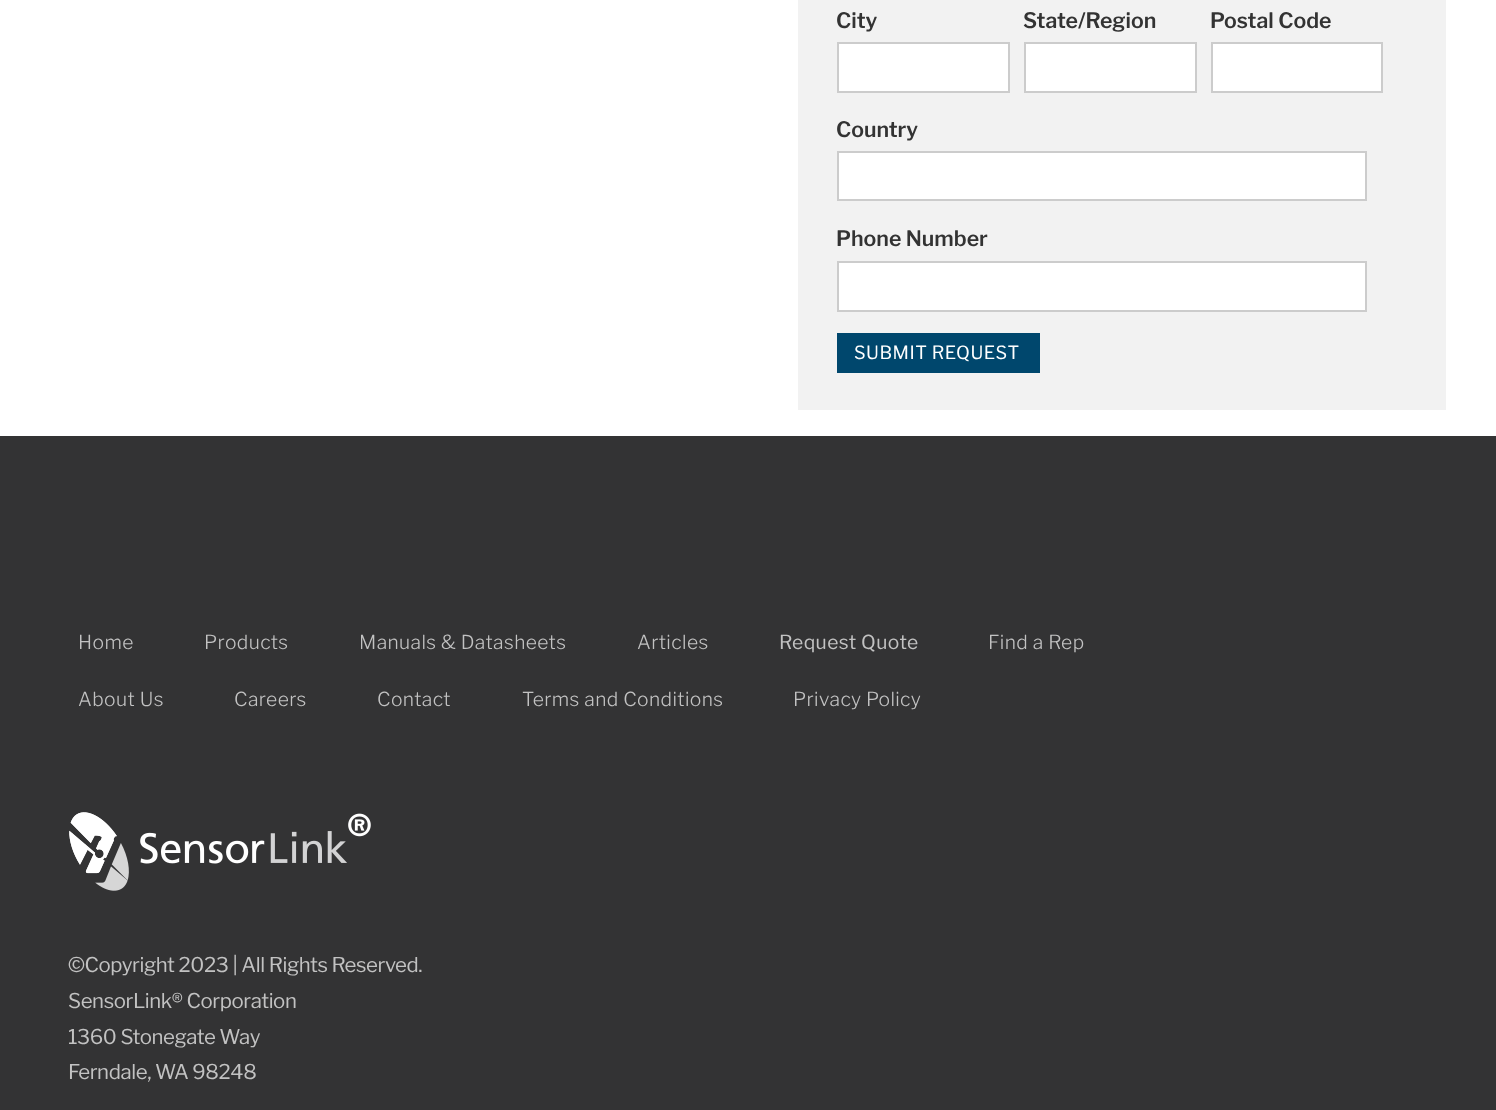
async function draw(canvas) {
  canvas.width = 1496;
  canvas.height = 1110;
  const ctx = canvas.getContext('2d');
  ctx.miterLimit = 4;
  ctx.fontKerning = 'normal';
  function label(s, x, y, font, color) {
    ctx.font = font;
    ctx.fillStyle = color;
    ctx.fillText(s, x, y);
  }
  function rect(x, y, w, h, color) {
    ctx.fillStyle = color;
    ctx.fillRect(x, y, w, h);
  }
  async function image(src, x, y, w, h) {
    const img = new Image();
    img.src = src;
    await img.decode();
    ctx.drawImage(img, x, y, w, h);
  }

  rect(0, 0, 1496, 1110, '#fff');
  rect(798, 0, 648, 410, '#f2f2f2');
  label('City', 836, 28, '600 21.25px Libre Franklin', '#333');
  ctx.fillStyle = '#fff';
  ctx.beginPath();
  ctx.rect(838, 43, 171, 49);
  ctx.fill();
  ctx.strokeStyle = '#ccc';
  ctx.lineWidth = 2;
  ctx.stroke();
  label('State/Region', 1023, 28, '600 21.25px Libre Franklin', '#333');
  ctx.fillStyle = '#fff';
  ctx.beginPath();
  ctx.rect(1025, 43, 171, 49);
  ctx.fill();
  ctx.stroke();
  label('Postal Code', 1210, 28, '600 21.25px Libre Franklin', '#333');
  ctx.fillStyle = '#fff';
  ctx.beginPath();
  ctx.rect(1212, 43, 170, 49);
  ctx.fill();
  ctx.stroke();
  label('Country', 836, 137, '600 21.25px Libre Franklin', '#333');
  ctx.fillStyle = '#fff';
  ctx.beginPath();
  ctx.rect(838, 152, 528, 48);
  ctx.fill();
  ctx.stroke();
  label('Phone Number', 836, 246, '600 21.25px Libre Franklin', '#333');
  ctx.fillStyle = '#fff';
  ctx.beginPath();
  ctx.rect(838, 262, 528, 49);
  ctx.fill();
  ctx.stroke();
  rect(837, 333, 203, 40, '#00476d');
  ctx.letterSpacing = '0.5px';
  label('SUBMIT REQUEST', 854, 359, '18.1px Libre Franklin', '#fff');
  rect(0, 436, 1496, 674, '#333334');
  ctx.letterSpacing = '0.4px';
  label('Home', 78, 649, '300 19.25px Libre Franklin', '#c2c2c2');
  label('Products', 204, 649, '300 19.25px Libre Franklin', '#c2c2c2');
  label('Manuals & Datasheets', 359, 649, '300 19.25px Libre Franklin', '#c2c2c2');
  label('Articles', 637, 649, '300 19.25px Libre Franklin', '#c2c2c2');
  label('Request Quote', 779, 649, '19.25px Libre Franklin', '#c2c2c2');
  label('Find a Rep', 988, 649, '300 19.25px Libre Franklin', '#c2c2c2');
  label('About Us', 78, 706, '300 19.25px Libre Franklin', '#c2c2c2');
  label('Careers', 234, 706, '300 19.25px Libre Franklin', '#c2c2c2');
  label('Contact', 377, 706, '300 19.25px Libre Franklin', '#c2c2c2');
  label('Terms and Conditions', 522, 706, '300 19.25px Libre Franklin', '#c2c2c2');
  label('Privacy Policy', 793, 706, '300 19.25px Libre Franklin', '#c2c2c2');
  await image('assets/img1.png', 69, 812, 302, 79);
  ctx.letterSpacing = '-0.4px';
  label('©Copyright 2023 | All Rights Reserved.', 68, 972, '20.4px Libre Franklin', '#c2c2c2');
  label('SensorLink® Corporation', 68, 1008, '20.4px Libre Franklin', '#c2c2c2');
  label('1360 Stonegate Way', 68, 1044, '20.4px Libre Franklin', '#c2c2c2');
  label('Ferndale, WA 98248', 68, 1079, '20.4px Libre Franklin', '#c2c2c2');
}

draw(document.querySelector('canvas'));
